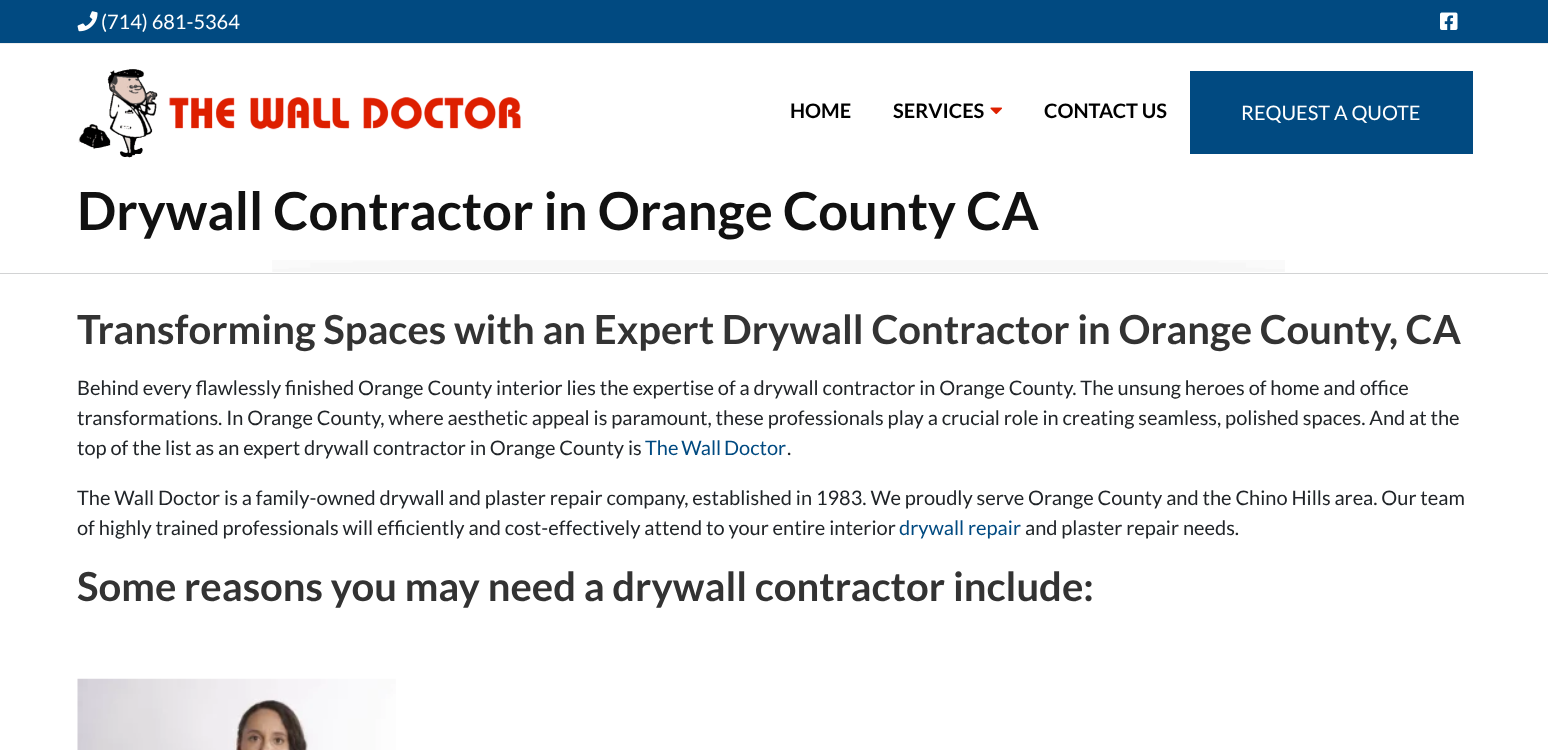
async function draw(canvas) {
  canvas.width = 1548;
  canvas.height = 750;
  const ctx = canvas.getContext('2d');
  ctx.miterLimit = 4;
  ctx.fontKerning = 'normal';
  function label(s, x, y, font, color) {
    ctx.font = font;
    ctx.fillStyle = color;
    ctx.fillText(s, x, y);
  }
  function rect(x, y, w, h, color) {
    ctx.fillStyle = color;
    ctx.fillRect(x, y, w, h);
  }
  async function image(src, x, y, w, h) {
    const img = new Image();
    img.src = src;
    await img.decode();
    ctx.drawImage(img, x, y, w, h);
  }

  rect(0, 0, 1548, 750, '#fff');
  rect(0, 0, 1548, 43, '#014a81');
  rect(0, 43, 1548, 1, '#eee');
  await image('assets/img1.png', 77, 11, 21, 21);
  label('(714) 681-5364', 101, 29, '20px Lato', '#fff');
  await image('assets/img2.png', 1440, 12, 18, 18);
  await image('assets/img3.png', 78, 69, 443, 89);
  label('HOME', 790, 118, 'bold 20px Lato', '#000');
  label('SERVICES', 893, 118, 'bold 20px Lato', '#000');
  await image('assets/img4.png', 990, 107, 12, 8);
  label('CONTACT US', 1044, 118, 'bold 20px Lato', '#000');
  rect(1190, 71, 283, 83, '#014a81');
  label('REQUEST A QUOTE', 1241, 120, '20px Lato', '#fff');
  await image('assets/img5.png', 272, 260, 1013, 12);
  rect(0, 273, 1548, 1, '#d2d3d4');
  label('Drywall Contractor in Orange County CA', 77, 230, 'bold 52.5px Lato', '#111');
  label('Transforming Spaces with an Expert Drywall Contractor in Orange County, CA', 77, 344, 'bold 40px Lato', '#333');
  label('Behind every flawlessly finished Orange County interior lies the expertise of a drywall contractor in Orange County. The unsung heroes of home and office', 77, 395, '20px Lato', '#212529');
  label('transformations. In Orange County, where aesthetic appeal is paramount, these professionals play a crucial role in creating seamless, polished spaces. And at the', 77, 425, '20px Lato', '#212529');
  label('top of the list as an expert drywall contractor in Orange County is', 77, 455, '20px Lato', '#212529');
  ctx.wordSpacing = '-1px';
  label('The Wall Doctor', 645, 455, '20px Lato', '#014a81');
  ctx.wordSpacing = '0px';
  label('.', 787, 455, '20px Lato', '#212529');
  label('The Wall Doctor is a family-owned drywall and plaster repair company, established in 1983. We proudly serve Orange County and the Chino Hills area. Our team', 77, 505, '20px Lato', '#212529');
  label('of highly trained professionals will efficiently and cost-effectively attend to your entire interior', 77, 535, '20px Lato', '#212529');
  label('drywall repair', 899, 535, '20px Lato', '#014a81');
  label('and plaster repair needs.', 1025, 535, '20px Lato', '#212529');
  label('Some reasons you may need a drywall contractor include:', 77, 601, 'bold 40px Lato', '#333');
  await image('assets/img6.png', 77, 678, 319, 72);
}

draw(document.querySelector('canvas'));
